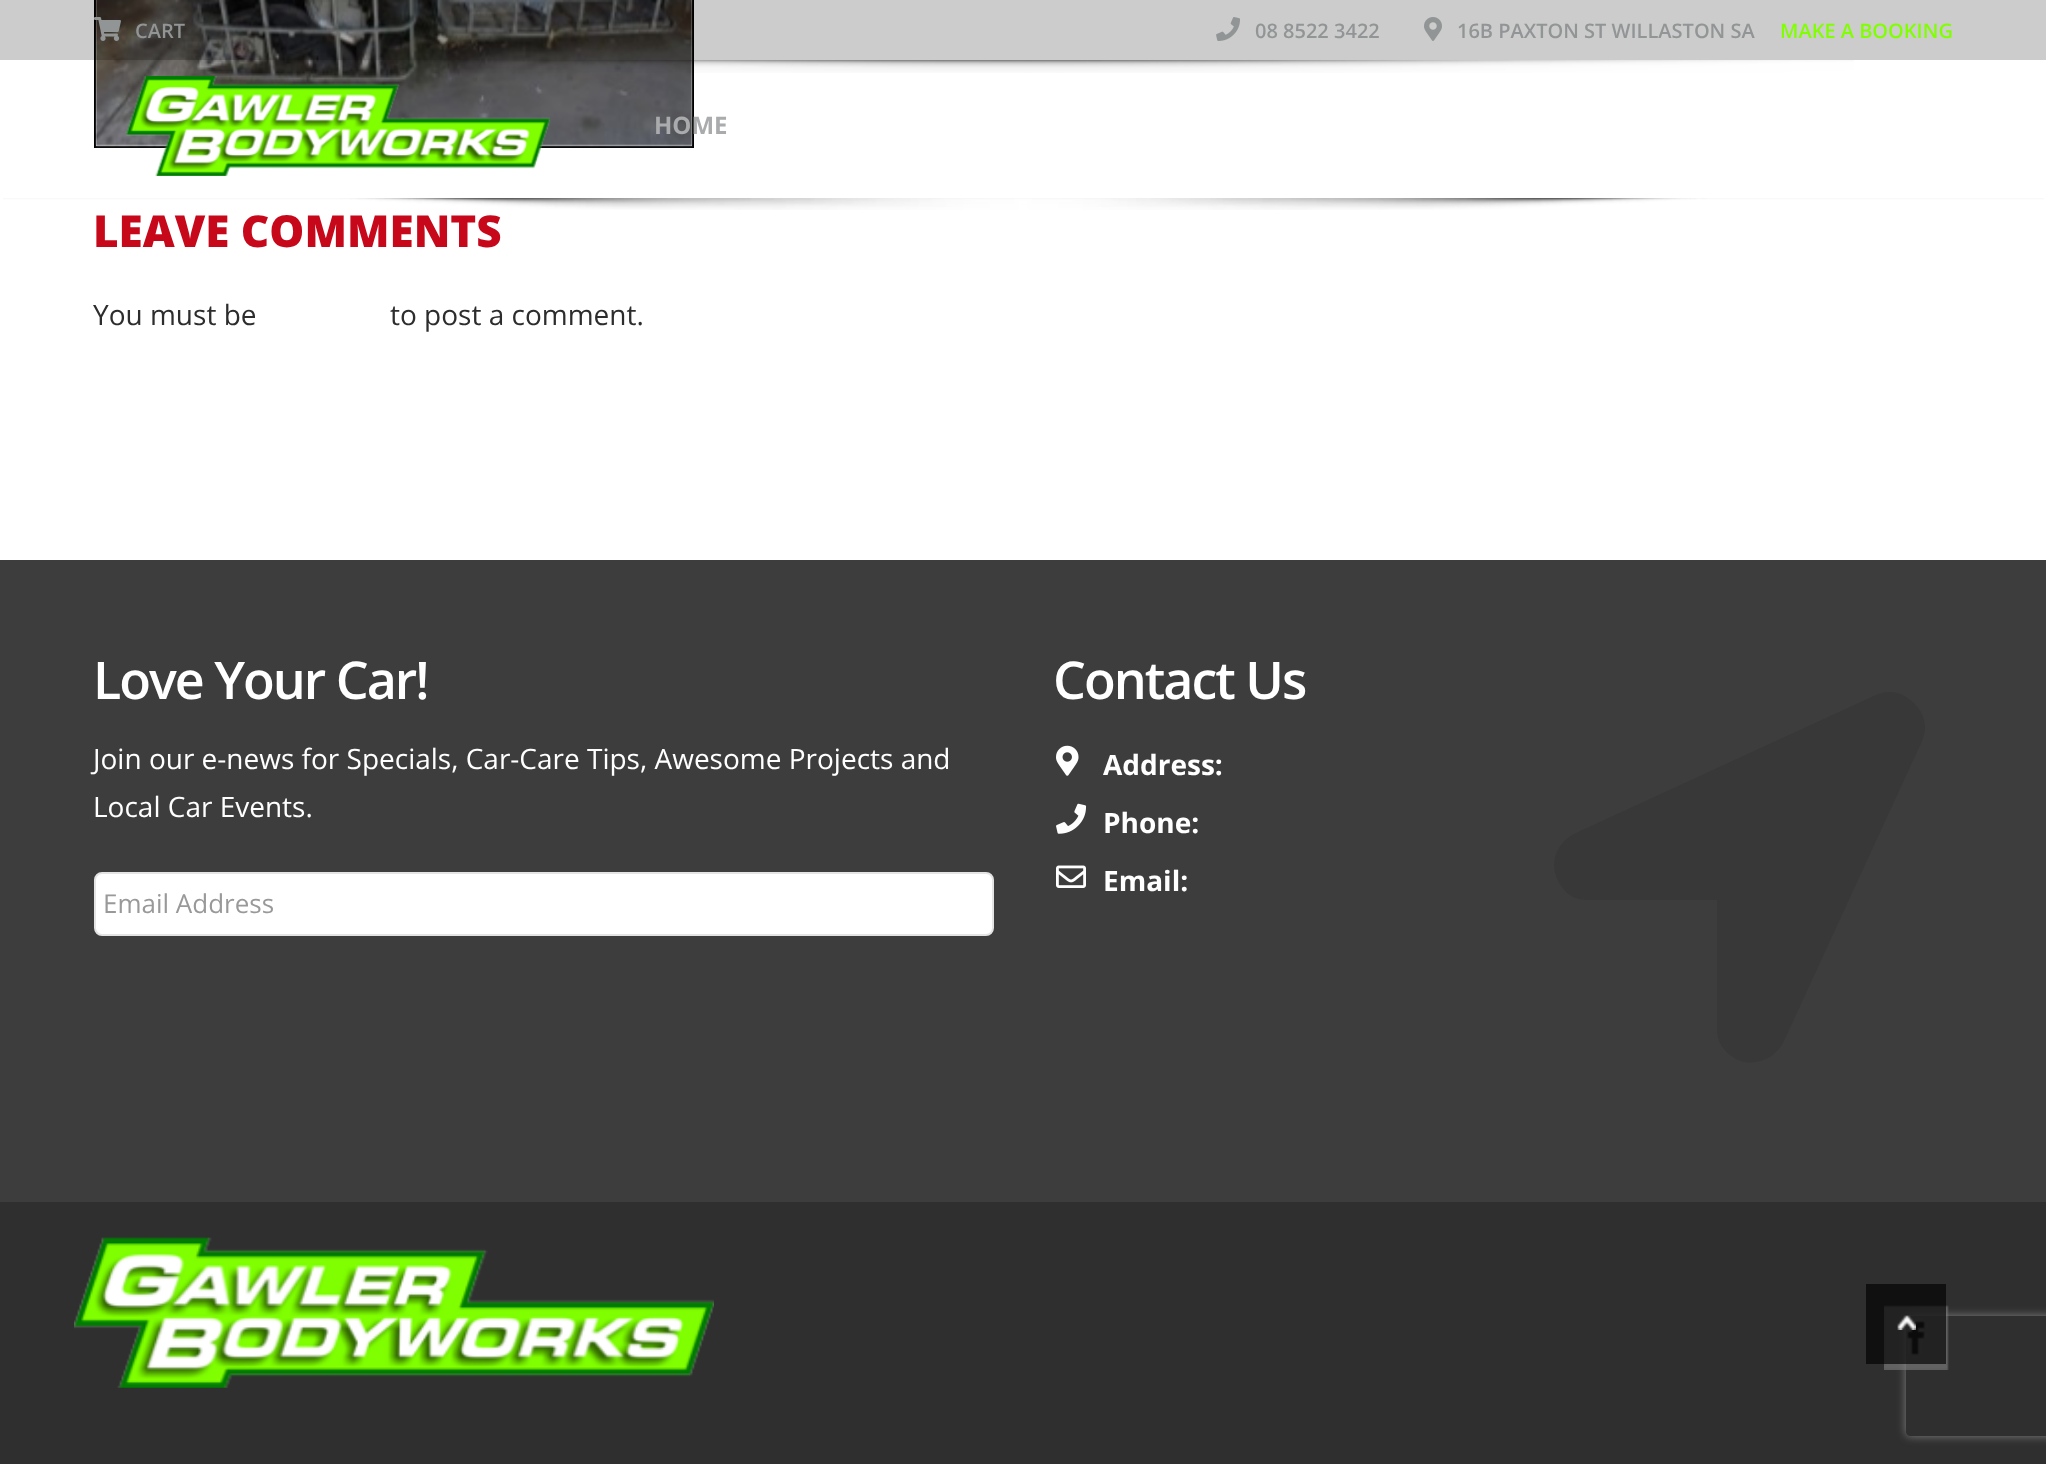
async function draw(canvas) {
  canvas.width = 2046;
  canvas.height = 1464;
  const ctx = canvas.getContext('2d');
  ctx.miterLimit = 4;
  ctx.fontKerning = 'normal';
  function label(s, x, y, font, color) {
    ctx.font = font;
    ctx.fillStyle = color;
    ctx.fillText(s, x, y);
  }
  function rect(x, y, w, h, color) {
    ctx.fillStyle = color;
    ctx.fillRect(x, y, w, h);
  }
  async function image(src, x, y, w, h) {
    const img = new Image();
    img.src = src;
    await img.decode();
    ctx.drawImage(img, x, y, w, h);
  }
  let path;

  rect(0, 0, 2046, 1464, '#fff');
  ctx.strokeStyle = '#000';
  ctx.lineWidth = 2;
  ctx.strokeRect(95, -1, 598, 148);
  await image('assets/img7.png', 95, 0, 598, 148);
  rect(0, 0, 2046, 60, '#00000033');
  await image('assets/img1.png', 94, 17, 27, 24);
  label('CART', 135, 38, '600 20px Open Sans', '#929596');
  await image('assets/img2.png', 1216, 17, 24, 24);
  label('08 8522 3422', 1255, 38, '600 20px Open Sans', '#929596');
  await image('assets/img3.png', 1424, 17, 18, 24);
  label('16B PAXTON ST WILLASTON SA', 1457, 38, '600 20px Open Sans', '#929596');
  label('MAKE A BOOKING', 1780, 38, '600 20px Open Sans', '#80ff00');
  await image('assets/img4.png', 255, 60, 1599, 13);
  await image('assets/img5.png', 125, 76, 425, 100);
  label('HOME', 654, 134, 'bold 24px Open Sans', '#aaabad');
  await image('assets/img6.png', 3, 198, 2041, 12);
  label('LEAVE COMMENTS', 93, 247, '800 44px Open Sans', '#c7081b');
  label('You must be', 93, 325, '28px Open Sans', '#2d2d2d');
  label('to post a comment.', 390, 325, '28px Open Sans', '#2d2d2d');
  rect(0, 560, 2046, 642, '#3d3d3d');
  ctx.letterSpacing = '-2px';
  label('Love Your Car!', 93, 699, '600 52px Open Sans', '#fff');
  ctx.letterSpacing = '0px';
  label('Join our e-news for Specials, Car-Care Tips, Awesome Projects and', 93, 769, '28px Open Sans', '#fff');
  label('Local Car Events.', 93, 817, '28px Open Sans', '#fff');
  ctx.beginPath();
  ctx.roundRect(95, 873, 898, 62, 7);
  ctx.fill();
  ctx.strokeStyle = '#e4e4e4';
  ctx.stroke();
  label('Email Address', 103, 913, '26px Open Sans', '#999');
  ctx.letterSpacing = '-2px';
  label('Contact Us', 1053, 699, '600 52px Open Sans', '#fff');
  await image('assets/img8.png', 1056, 745, 23, 31);
  ctx.letterSpacing = '0px';
  label('Address:', 1103, 775, 'bold 28px Open Sans', '#fff');
  await image('assets/img9.png', 1056, 803, 31, 31);
  label('Phone:', 1103, 833, 'bold 28px Open Sans', '#fff');
  await image('assets/img10.png', 1056, 865, 30, 23);
  label('Email:', 1103, 891, 'bold 28px Open Sans', '#fff');
  ctx.fillStyle = '#383838';
  path = new Path2D('M1876 695C1890 689 1902 692 1914 703C1925 715 1928 727 1922 741L1784 1041C1780 1049 1774 1055 1766 1059C1759 1062 1751 1063 1744 1062C1737 1060 1730 1056 1725 1050C1719 1044 1717 1036 1717 1028V900H1589C1577 900 1568 896 1562 887C1555 878 1553 868 1555 857C1558 847 1565 838 1576 833Z');
  ctx.fill(path);
  rect(0, 1202, 2046, 262, '#2f2f2f');
  await image('assets/img11.png', 74, 1237, 640, 151);
  await image('assets/img12.png', 1884, 1305, 65, 65);
  ctx.save();
  path = new Path2D('M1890 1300H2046V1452H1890ZM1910 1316H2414C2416 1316 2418 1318 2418 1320V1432C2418 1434 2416 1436 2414 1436H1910C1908 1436 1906 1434 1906 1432V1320C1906 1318 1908 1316 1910 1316Z');
  ctx.clip(path, 'evenodd');
  ctx.fillStyle = '#808080';
  ctx.filter = 'blur(5px)';
  ctx.beginPath();
  ctx.roundRect(1906, 1316, 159, 120, 4);
  ctx.fill();
  ctx.filter = 'none';
  ctx.restore();
  rect(1866, 1284, 80, 80, '#000000a6');
  await image('assets/img13.png', 1897, 1315, 19, 15);
}

draw(document.querySelector('canvas'));
